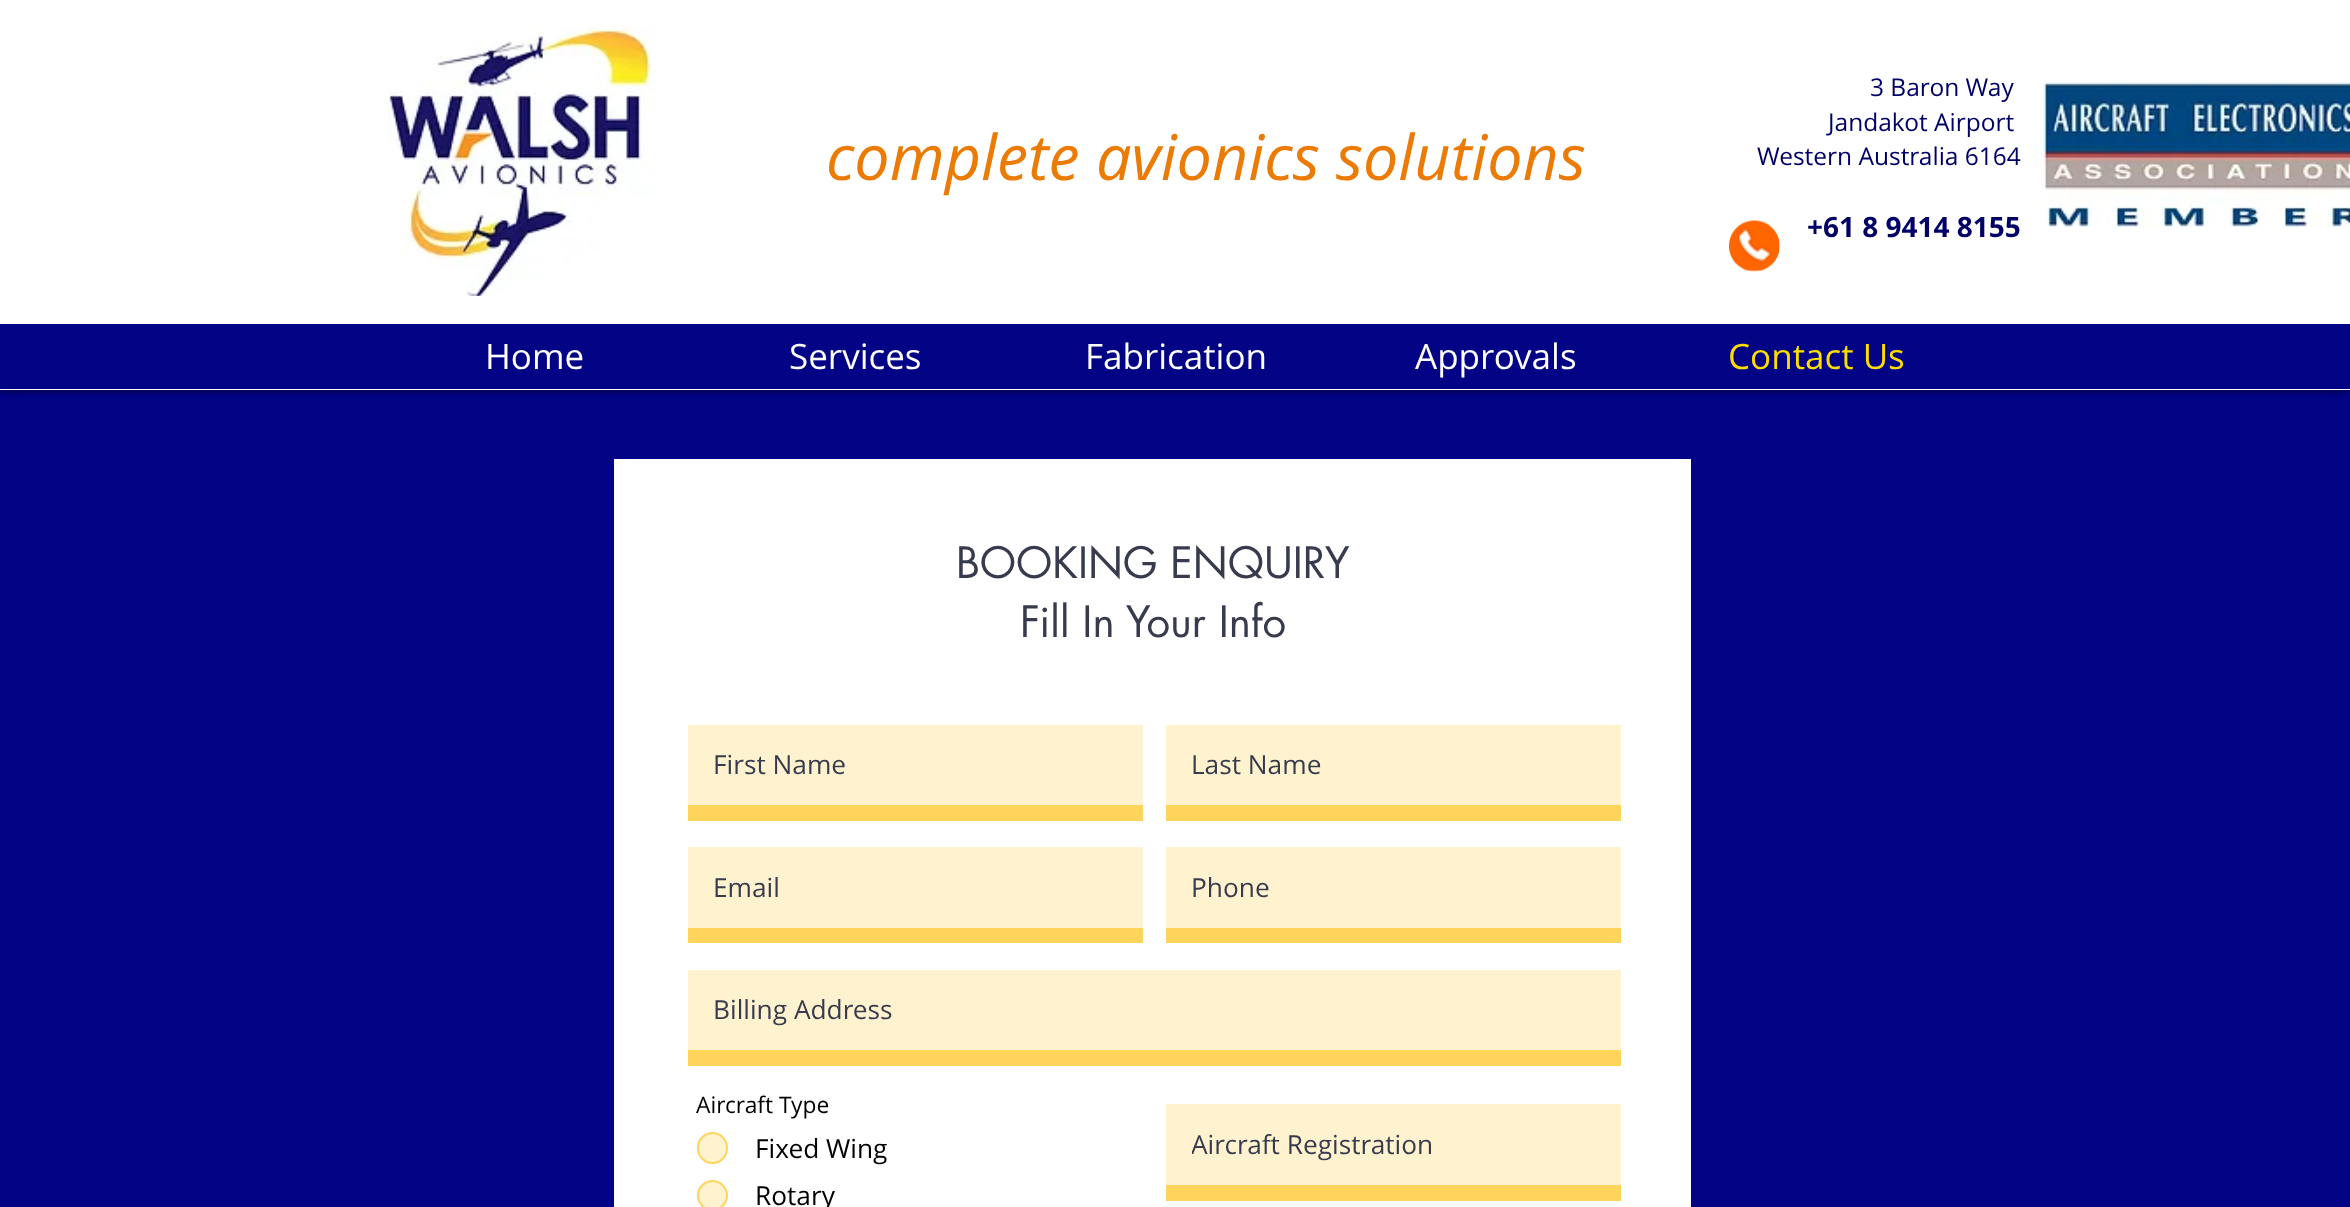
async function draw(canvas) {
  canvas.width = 2350;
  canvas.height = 1207;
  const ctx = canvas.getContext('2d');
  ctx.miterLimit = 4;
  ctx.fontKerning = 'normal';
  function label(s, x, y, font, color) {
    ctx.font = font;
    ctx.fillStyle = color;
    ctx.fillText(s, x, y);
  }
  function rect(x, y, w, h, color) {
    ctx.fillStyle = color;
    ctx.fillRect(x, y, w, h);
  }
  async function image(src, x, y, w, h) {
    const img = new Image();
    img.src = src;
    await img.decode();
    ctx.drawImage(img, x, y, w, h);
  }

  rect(0, 0, 2350, 1207, '#030385');
  ctx.fillStyle = '#000000b3';
  ctx.filter = 'blur(4.5px)';
  ctx.beginPath();
  ctx.rect(0, 0, 2350, 390);
  ctx.fill();
  ctx.filter = 'none';
  rect(0, 0, 2350, 390, '#fff');
  await image('assets/img1.png', 388, 27, 267, 269);
  label('complete avionics solutions', 826, 180, 'italic 63px Open Sans', '#eb7b05');
  label('3 Baron Way', 1870, 96, '24.5px Open Sans', '#006');
  label('Jandakot Airport', 1828, 131, '24.5px Open Sans', '#006');
  label('Western Australia 6164', 1757, 165, '24.5px Open Sans', '#006');
  label('+61 8 9414 8155', 1807, 237, 'bold 28px Open Sans', '#006');
  await image('assets/img2.png', 2034, 81, 316, 147);
  await image('assets/img3.png', 1729, 220, 51, 52);
  rect(0, 324, 2350, 65, '#030385');
  label('Home', 485, 369, '35px Open Sans', '#fefdfd');
  label('Services', 789, 369, '35px Open Sans', '#fefdfd');
  label('Fabrication', 1085, 369, '35px Open Sans', '#fefdfd');
  label('Approvals', 1415, 369, '35px Open Sans', '#fefdfd');
  label('Contact Us', 1728, 369, '35px Open Sans', '#fedd00');
  rect(614, 459, 1077, 748, '#fff');
  label('BOOKING ENQUIRY', 956, 578, '42px futura', '#373b4d');
  label('Fill In Your Info', 1020, 637, '42px futura', '#373b4d');
  rect(688, 725, 455, 80, '#fff2ce');
  rect(688, 805, 455, 16, '#ffd45a');
  label('First Name', 713, 774, '26.25px Open Sans', '#373b4d');
  rect(1166, 725, 455, 80, '#fff2ce');
  rect(1166, 805, 455, 16, '#ffd45a');
  label('Last Name', 1191, 774, '26.25px Open Sans', '#373b4d');
  rect(688, 847, 455, 81, '#fff2ce');
  rect(688, 928, 455, 15, '#ffd45a');
  label('Email', 713, 897, '26.25px Open Sans', '#373b4d');
  rect(1166, 847, 455, 81, '#fff2ce');
  rect(1166, 928, 455, 15, '#ffd45a');
  label('Phone', 1191, 897, '26.25px Open Sans', '#373b4d');
  rect(688, 970, 933, 80, '#fff2ce');
  rect(688, 1050, 933, 16, '#ffd45a');
  label('Billing Address', 713, 1019, '26.25px Open Sans', '#373b4d');
  label('Aircraft Type', 696, 1113, '22.75px Open Sans', '#000');
  ctx.fillStyle = '#fff2ce';
  ctx.beginPath();
  ctx.roundRect(698, 1133, 29, 30, 14.5);
  ctx.fill();
  ctx.strokeStyle = '#ffd45a';
  ctx.lineWidth = 2;
  ctx.stroke();
  label('Fixed Wing', 755, 1158, '26.25px Open Sans', '#000');
  ctx.fillStyle = '#fff2ce';
  ctx.beginPath();
  ctx.arc(712.5, 1195.5, 14.5, 0, 2 * Math.PI);
  ctx.fill();
  ctx.stroke();
  label('Rotary', 755, 1205, '26.25px Open Sans', '#000');
  rect(1166, 1104, 455, 81, '#fff2ce');
  rect(1166, 1185, 455, 16, '#ffd45a');
  ctx.save();
  ctx.beginPath();
  ctx.rect(1192, 1127, 423, 35);
  ctx.clip();
  label('Aircraft Registration', 1191, 1154, '26.25px Open Sans', '#373b4d');
  ctx.restore();
}

draw(document.querySelector('canvas'));
